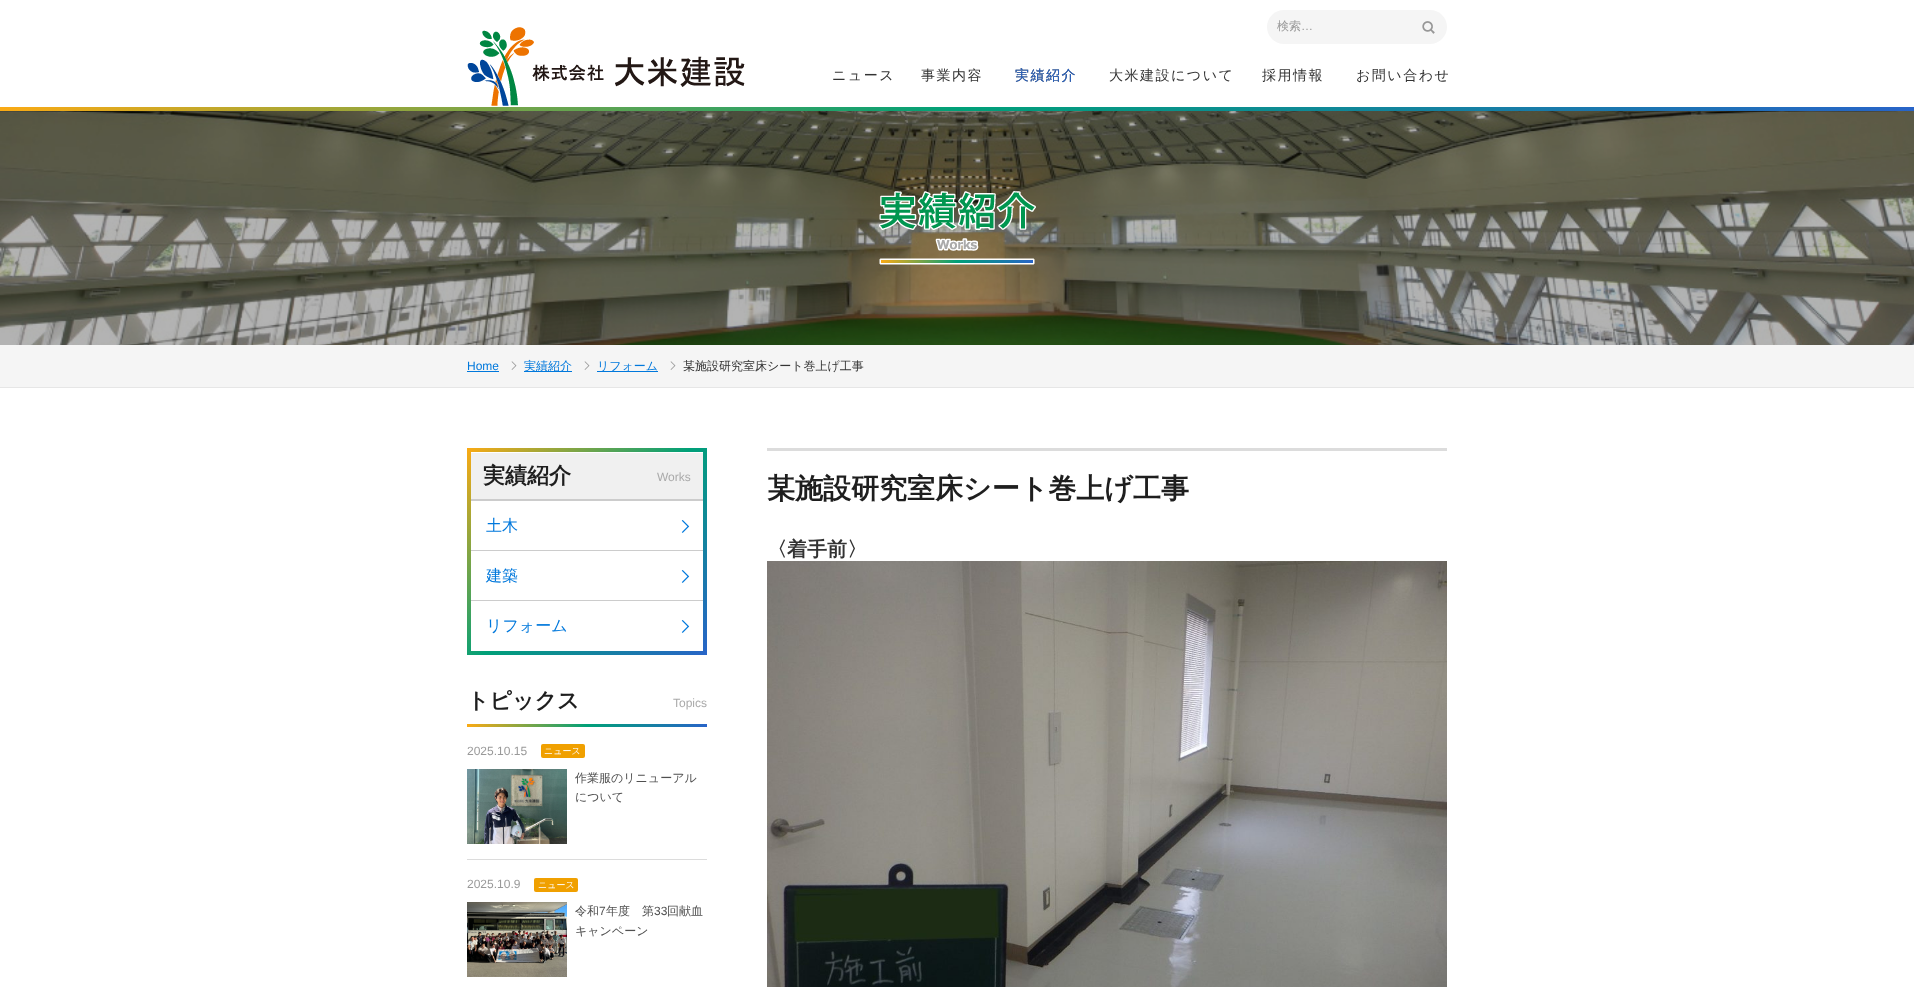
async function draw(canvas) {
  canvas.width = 1914;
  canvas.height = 987;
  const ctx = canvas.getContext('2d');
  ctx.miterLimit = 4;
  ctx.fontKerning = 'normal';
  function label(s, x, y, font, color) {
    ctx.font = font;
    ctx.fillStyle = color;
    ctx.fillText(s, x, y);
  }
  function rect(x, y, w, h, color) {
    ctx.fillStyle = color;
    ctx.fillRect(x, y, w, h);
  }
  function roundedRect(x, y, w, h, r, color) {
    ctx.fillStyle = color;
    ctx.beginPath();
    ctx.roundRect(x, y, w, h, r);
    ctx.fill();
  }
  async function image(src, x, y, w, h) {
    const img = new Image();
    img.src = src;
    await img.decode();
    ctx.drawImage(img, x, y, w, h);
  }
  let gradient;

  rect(0, 0, 1914, 987, '#fff');
  gradient = ctx.createLinearGradient(0, 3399, 1914, 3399);
  gradient.addColorStop(0, '#faaa14');
  gradient.addColorStop(0.5, '#00a078');
  gradient.addColorStop(1, '#2864c8');
  ctx.fillStyle = gradient;
  ctx.fillRect(0, 107, 1914, 4);
  await image('assets/img1.png', 467, 27, 278, 79);
  roundedRect(1267, 10, 180, 34, 17, '#f5f5f5');
  label('検索', 1277, 30, '500 12px WenQuanYi Zen Hei', '#999');
  label('…', 1301, 30, '12px Liberation Sans', '#999');
  await image('assets/img2.png', 1422, 21, 13, 13);
  ctx.letterSpacing = '1.5px';
  label('ニュース', 832, 80, '500 14px Noto Sans', '#333');
  label('事業内容', 921, 80, '500 14px Noto Sans', '#333');
  label('実績紹介', 1015, 80, '500 14px Noto Sans', '#333');
  label('実績紹介', 1015, 80, '500 14px Noto Sans', '#2864c8');
  label('大米建設について', 1109, 80, '500 14px Noto Sans', '#333');
  label('採用情報', 1262, 80, '500 14px Noto Sans', '#333');
  label('お問い合わせ', 1356, 80, '500 14px Noto Sans', '#333');
  await image('assets/img3.png', 0, 111, 1914, 234);
  await image('assets/img4.png', 879, 191, 157, 74);
  rect(0, 345, 1914, 42, '#f5f5f5');
  rect(0, 387, 1914, 1, '#e6e6e6');
  ctx.letterSpacing = '0px';
  label('Home', 467, 370, '12px Liberation Sans', '#0078dc');
  rect(467, 371, 32, 1, '#0078dc');
  await image('assets/img5.png', 511, 361, 6, 9);
  rect(524, 371, 48, 1, '#0078dc');
  label('実績紹介', 524, 370, '500 12px WenQuanYi Zen Hei', '#0078dc');
  await image('assets/img5.png', 584, 361, 6, 9);
  rect(597, 371, 61, 1, '#0078dc');
  label('リフォーム', 597, 370, '500 12px WenQuanYi Zen Hei', '#0078dc');
  await image('assets/img5.png', 670, 361, 6, 9);
  label('某施設研究室床シート巻上げ工事', 683, 370, '500 12px WenQuanYi Zen Hei', '#333');
  gradient = ctx.createLinearGradient(475, 440, 699, 663);
  gradient.addColorStop(0, '#faaa14');
  gradient.addColorStop(0.5, '#00a078');
  gradient.addColorStop(1, '#2864c8');
  ctx.fillStyle = gradient;
  ctx.fillRect(467, 448, 240, 207);
  rect(471, 453, 232, 46, '#f0f0f0');
  rect(471, 452, 232, 1, '#fff');
  rect(471, 499, 232, 2, '#ccc');
  label('実績紹介', 483, 483, 'bold 22px WenQuanYi Zen Hei', '#1e1e1e');
  label('Works', 657, 481, '12px Liberation Sans', '#aaa');
  rect(471, 501, 232, 150, '#fff');
  rect(471, 550, 232, 1, '#ccc');
  label('土木', 486, 531, '500 16px WenQuanYi Zen Hei', '#0078dc');
  await image('assets/img6.png', 681, 520, 9, 13);
  rect(471, 600, 232, 1, '#ccc');
  label('建築', 486, 581, '500 16px WenQuanYi Zen Hei', '#0078dc');
  await image('assets/img6.png', 681, 570, 9, 13);
  label('リフォーム', 486, 631, '500 16px WenQuanYi Zen Hei', '#0078dc');
  await image('assets/img6.png', 681, 620, 9, 13);
  label('トピックス', 467, 708, 'bold 22px WenQuanYi Zen Hei', '#1e1e1e');
  label('Topics', 673, 707, '12px Liberation Sans', '#aaa');
  gradient = ctx.createLinearGradient(467, 726, 707, 726);
  gradient.addColorStop(0, '#faaa14');
  gradient.addColorStop(0.5, '#00a078');
  gradient.addColorStop(1, '#2864c8');
  ctx.fillStyle = gradient;
  ctx.fillRect(467, 724, 240, 3);
  rect(467, 859, 240, 1, '#dcdcdc');
  label('2025.10.15', 467, 755, '12px Liberation Sans', '#999');
  roundedRect(541, 744, 44, 14, 2, '#f0a000');
  label('ニュース', 544, 754, '500 9px WenQuanYi Zen Hei', '#fff');
  await image('assets/img7.png', 467, 769, 100, 75);
  label('作業服のリニューアル', 575, 782, '500 12px WenQuanYi Zen Hei', '#505050');
  label('について', 575, 801, '500 12px WenQuanYi Zen Hei', '#505050');
  label('2025.10.9', 467, 888, '12px Liberation Sans', '#999');
  roundedRect(534, 878, 44, 14, 2, '#f0a000');
  label('ニュース', 538, 888, '500 9px WenQuanYi Zen Hei', '#fff');
  await image('assets/img8.png', 467, 902, 100, 75);
  label('令和', 575, 915, '500 12px WenQuanYi Zen Hei', '#505050');
  label('7', 599, 915, '12px Liberation Sans', '#505050');
  label('年度　第', 606, 915, '500 12px WenQuanYi Zen Hei', '#505050');
  label('33', 654, 915, '12px Liberation Sans', '#505050');
  label('回献血', 667, 915, '500 12px WenQuanYi Zen Hei', '#505050');
  label('キャンペーン', 575, 935, '500 12px WenQuanYi Zen Hei', '#505050');
  rect(767, 448, 680, 3, '#dcdcdc');
  label('某施設研究室床シート巻上げ工事', 767, 498, 'bold 28px WenQuanYi Zen Hei', '#1e1e1e');
  label('〈着手前〉', 767, 556, 'bold 20px WenQuanYi Zen Hei', '#333');
  await image('assets/img9.png', 767, 561, 680, 426);
}

draw(document.querySelector('canvas'));
